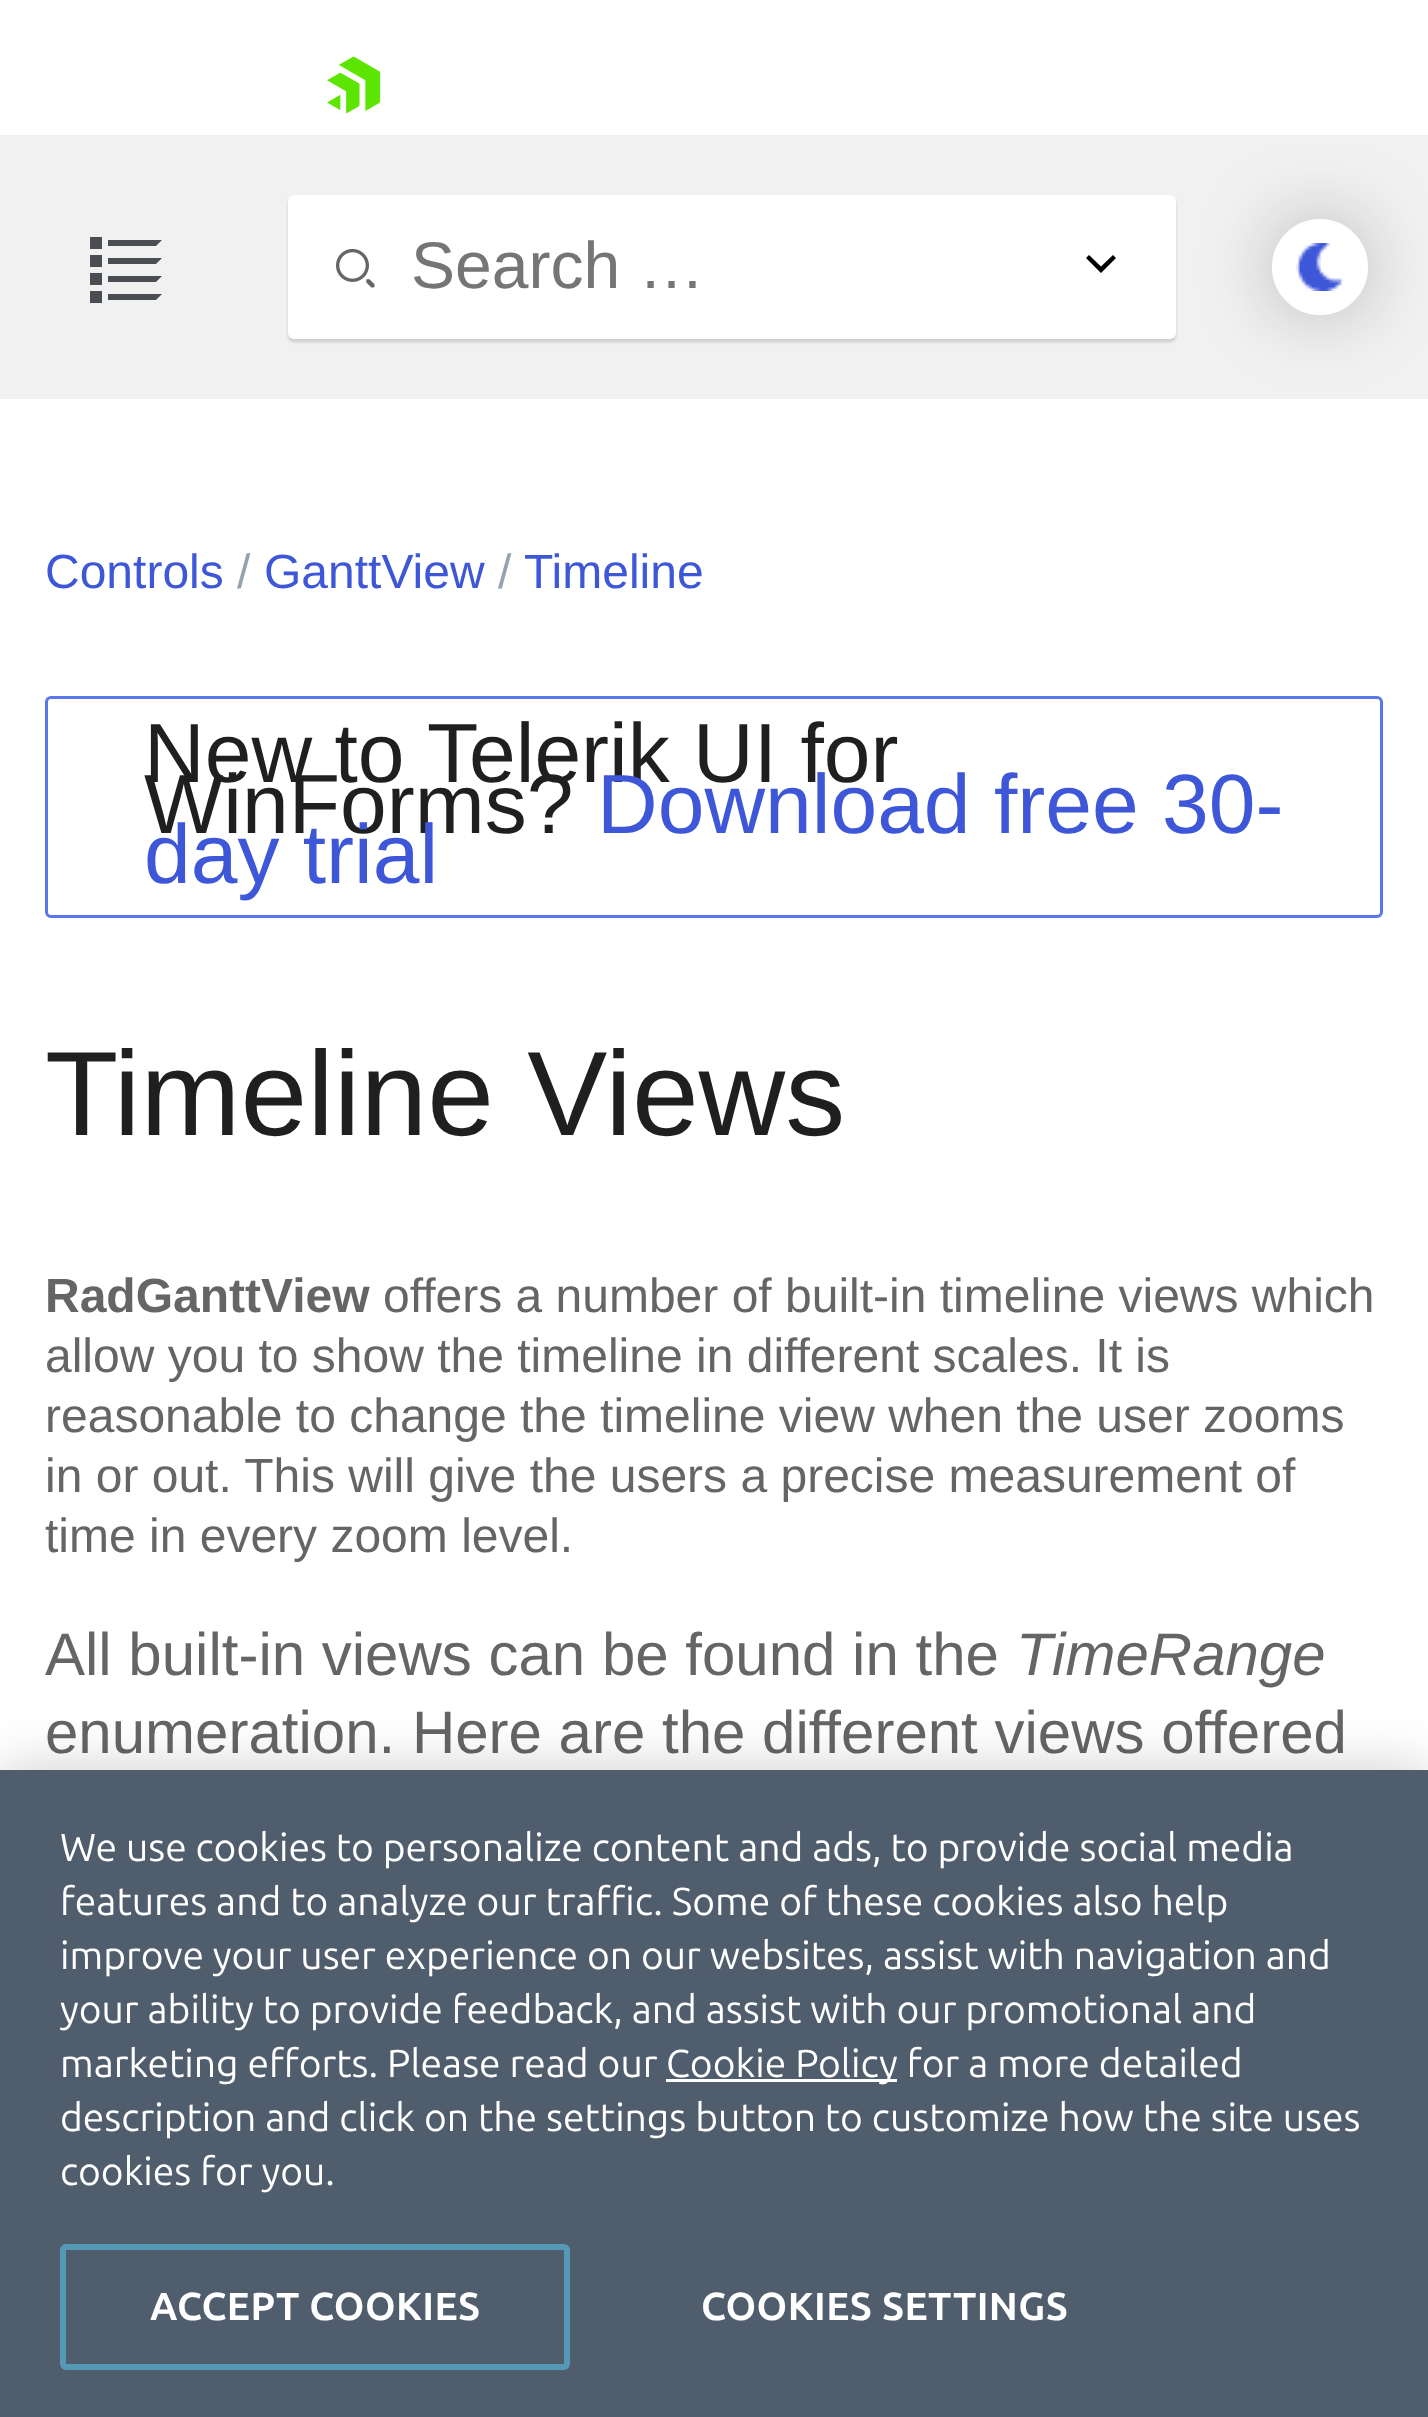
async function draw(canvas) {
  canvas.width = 1428;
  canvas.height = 2417;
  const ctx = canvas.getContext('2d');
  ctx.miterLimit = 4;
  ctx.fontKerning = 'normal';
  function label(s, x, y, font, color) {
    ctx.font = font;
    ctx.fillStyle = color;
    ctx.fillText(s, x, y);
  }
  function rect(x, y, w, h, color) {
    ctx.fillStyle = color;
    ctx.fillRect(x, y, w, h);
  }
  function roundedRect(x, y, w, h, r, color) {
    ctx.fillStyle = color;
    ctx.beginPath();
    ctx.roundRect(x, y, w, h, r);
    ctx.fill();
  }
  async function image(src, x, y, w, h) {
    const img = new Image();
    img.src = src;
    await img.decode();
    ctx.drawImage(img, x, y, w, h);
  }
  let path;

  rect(0, 0, 1428, 2417, '#fff');
  await image('assets/img1.png', 327, 56, 54, 58);
  rect(0, 135, 1428, 264, '#f1f1f1');
  await image('assets/img2.png', 90, 237, 72, 66);
  ctx.fillStyle = '#00000026';
  ctx.filter = 'blur(1.5px)';
  ctx.beginPath();
  ctx.roundRect(288, 198, 888, 144, 6);
  ctx.fill();
  ctx.filter = 'none';
  ctx.fillStyle = '#5a5e6666';
  ctx.filter = 'blur(36px)';
  ctx.beginPath();
  ctx.roundRect(1272, 219, 96, 96, 48);
  ctx.fill();
  ctx.filter = 'none';
  roundedRect(288, 195, 888, 144, 6, '#fff');
  await image('assets/img3.png', 336, 248, 39, 40);
  label('Search …', 411, 288, '66px Liberation Sans', '#757575');
  ctx.fillStyle = '#000';
  path = new Path2D('M1113 255L1101 266.5L1089 255L1086 258L1101 273L1116 258Z');
  ctx.fill(path);
  ctx.fillStyle = '#fff';
  ctx.beginPath();
  ctx.arc(1320, 267, 45, 0, 2 * Math.PI);
  ctx.fill();
  ctx.strokeStyle = '#fff';
  ctx.lineWidth = 6;
  ctx.stroke();
  await image('assets/img4.png', 1296, 243, 48, 48);
  label('Controls', 45, 588, '48px Liberation Sans', '#3d57d8');
  label('/', 237, 588, '48px Liberation Sans', '#95a3b1');
  label('GanttView', 264, 588, '48px Liberation Sans', '#3d57d8');
  label('/', 498, 588, '48px Liberation Sans', '#95a3b1');
  label('Timeline', 524, 588, '48px Liberation Sans', '#3d57d8');
  ctx.beginPath();
  ctx.roundRect(46.5, 697.5, 1335, 219, 4.5);
  ctx.strokeStyle = '#5777ea';
  ctx.lineWidth = 3;
  ctx.stroke();
  ctx.wordSpacing = '-1px';
  label('New to', 144, 782, '84px Liberation Sans', '#1f1f1f');
  ctx.wordSpacing = '0px';
  label('Telerik UI for', 427, 782, '84px Liberation Sans', '#1f1f1f');
  label('WinForms?', 144, 833, '84px Liberation Sans', '#1f1f1f');
  label('Download free 30-', 597, 833, '84px Liberation Sans', '#3d57d8');
  label('day trial', 144, 883, '84px Liberation Sans', '#3d57d8');
  label('Timeline Views', 45, 1135, '120px Liberation Sans', '#1f1f1f');
  label('RadGanttView', 45, 1312, 'bold 48px Liberation Sans', '#656565');
  label('offers a number of built-in timeline views which', 383, 1312, '48px Liberation Sans', '#656565');
  label('allow you to show the timeline in different scales. It is', 45, 1372, '48px Liberation Sans', '#656565');
  label('reasonable to change the timeline view when the user zooms', 45, 1432, '48px Liberation Sans', '#656565');
  label('in or out. This will give the users a precise measurement of', 45, 1492, '48px Liberation Sans', '#656565');
  label('time in every zoom level.', 45, 1552, '48px Liberation Sans', '#656565');
  label('All built-in views can be found in the', 45, 1675, '60px Liberation Sans', '#656565');
  label('TimeRange', 1016, 1675, 'italic 60px Liberation Sans', '#656565');
  label('enumeration. Here are the different views offered', 45, 1753, '60px Liberation Sans', '#656565');
  ctx.fillStyle = '#00000033';
  ctx.filter = 'blur(27px)';
  ctx.beginPath();
  ctx.rect(0, 1770, 1428, 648);
  ctx.fill();
  ctx.filter = 'none';
  rect(0, 1770, 1428, 647, '#4f5d6c');
  label('We use cookies to personalize content and ads, to provide social media', 60, 1861, '39px Ubuntu', '#fff');
  label('features and to analyze our traffic. Some of these cookies also help', 60, 1915, '39px Ubuntu', '#fff');
  label('improve your user experience on our websites, assist with navigation and', 60, 1969, '39px Ubuntu', '#fff');
  label('your ability to provide feedback, and assist with our promotional and', 60, 2023, '39px Ubuntu', '#fff');
  label('marketing efforts. Please read our', 60, 2077, '39px Ubuntu', '#fff');
  rect(666, 2079, 231, 3, '#fff');
  label('Cookie Policy for a more detailed', 666, 2077, '39px Ubuntu', '#fff');
  label('description and click on the settings button to customize how the site uses', 60, 2131, '39px Ubuntu', '#fff');
  label('cookies for you.', 60, 2185, '39px Ubuntu', '#fff');
  ctx.beginPath();
  ctx.roundRect(63, 2247, 504, 120, 3);
  ctx.strokeStyle = '#5699b6';
  ctx.lineWidth = 6;
  ctx.stroke();
  ctx.letterSpacing = '0.4px';
  label('ACCEPT COOKIES', 150, 2320, 'bold 39px Ubuntu', '#fff');
  label('COOKIES SETTINGS', 701, 2320, 'bold 39px Ubuntu', '#fff');
}

draw(document.querySelector('canvas'));
